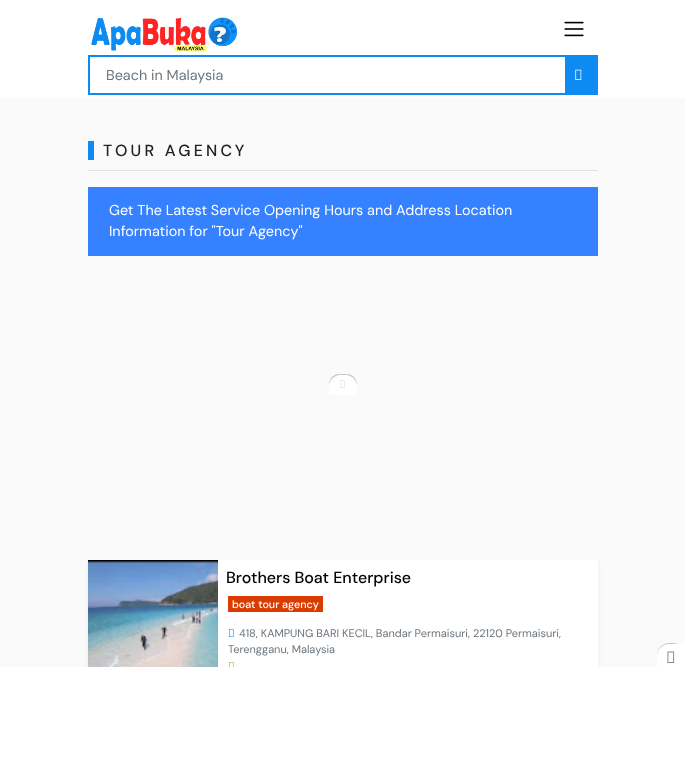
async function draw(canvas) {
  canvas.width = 685;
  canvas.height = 757;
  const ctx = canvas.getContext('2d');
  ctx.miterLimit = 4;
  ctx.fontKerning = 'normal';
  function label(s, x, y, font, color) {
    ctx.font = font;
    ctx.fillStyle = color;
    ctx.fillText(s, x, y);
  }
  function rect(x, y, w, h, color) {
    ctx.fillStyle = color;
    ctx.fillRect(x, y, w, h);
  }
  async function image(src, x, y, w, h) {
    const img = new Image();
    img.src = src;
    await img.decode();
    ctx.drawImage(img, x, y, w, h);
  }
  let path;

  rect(0, 0, 685, 757, '#fafafa');
  rect(0, 0, 685, 98, '#fff');
  await image('assets/img1.png', 91, 17, 146, 35);
  await image('assets/img2.png', 564, 21, 20, 16);
  rect(88, 55, 478, 2, '#0d8bf2');
  rect(88, 93, 478, 2, '#0d8bf2');
  rect(88, 55, 2, 40, '#0d8bf2');
  label('Beach in Malaysia', 106, 80, '14.4px DM Sans', '#6c757d');
  rect(565, 55, 33, 40, '#0d8bf2');
  await image('assets/img3.png', 575, 69, 7, 11);
  rect(88, 170, 510, 1, '#dee2e6');
  rect(88, 141, 6, 19, '#0d8bf2');
  ctx.letterSpacing = '3.25px';
  label('TOUR AGENCY', 103, 156, '500 16px DM Sans', '#222');
  rect(88, 187, 510, 69, '#3581ff');
  ctx.letterSpacing = '0px';
  label('Get The Latest Service Opening Hours and Address Location', 109, 215, '14.4px DM Sans', '#fff');
  label('Information for "Tour Agency"', 109, 236, '14.4px DM Sans', '#fff');
  ctx.fillStyle = '#00000012';
  ctx.filter = 'blur(2px)';
  ctx.beginPath();
  ctx.rect(88, 562, 510, 133);
  ctx.fill();
  ctx.filter = 'none';
  rect(218, 560, 380, 107, '#fff');
  await image('assets/img4.png', 88, 560, 130, 107);
  label('Brothers Boat Enterprise', 226, 583, '500 16px DM Sans', '#000');
  rect(228, 596, 95, 16, '#da3b01');
  label('boat tour agency', 232, 608, '500 10.75px DM Sans', '#fff');
  await image('assets/img5.png', 229, 629, 5, 8);
  label('418, KAMPUNG BARI KECIL, Bandar Permaisuri, 22120 Permaisuri,', 239, 637, '11px DM Sans', '#6c757d');
  label('Terengganu, Malaysia', 228, 653, '11px DM Sans', '#6c757d');
  await image('assets/img6.png', 229, 662, 5, 5);
  ctx.save();
  path = new Path2D('M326 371H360V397H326ZM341 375H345C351.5 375 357 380.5 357 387V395H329V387C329 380.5 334.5 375 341 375Z');
  ctx.clip(path, 'evenodd');
  ctx.fillStyle = '#00000033';
  ctx.filter = 'blur(0.5px)';
  ctx.beginPath();
  ctx.roundRect(329, 374, 28, 20, 12);
  ctx.fill();
  ctx.filter = 'none';
  ctx.restore();
  ctx.fillStyle = '#ffffffe6';
  ctx.beginPath();
  ctx.roundRect(329, 375, 28, 20, [12, 12, 0, 0]);
  ctx.fill();
  await image('assets/img7.png', 340, 380, 5, 8);
  rect(0, 667, 685, 90, '#fff');
  ctx.fillStyle = '#00000033';
  ctx.filter = 'blur(0.5px)';
  ctx.beginPath();
  ctx.roundRect(657, 643, 28, 28, 12);
  ctx.fill();
  ctx.filter = 'none';
  ctx.fillStyle = '#fff';
  ctx.beginPath();
  ctx.roundRect(657, 644, 28, 28, [12, 0, 0, 0]);
  ctx.fill();
  await image('assets/img8.png', 667, 651, 8, 12);
}

draw(document.querySelector('canvas'));
